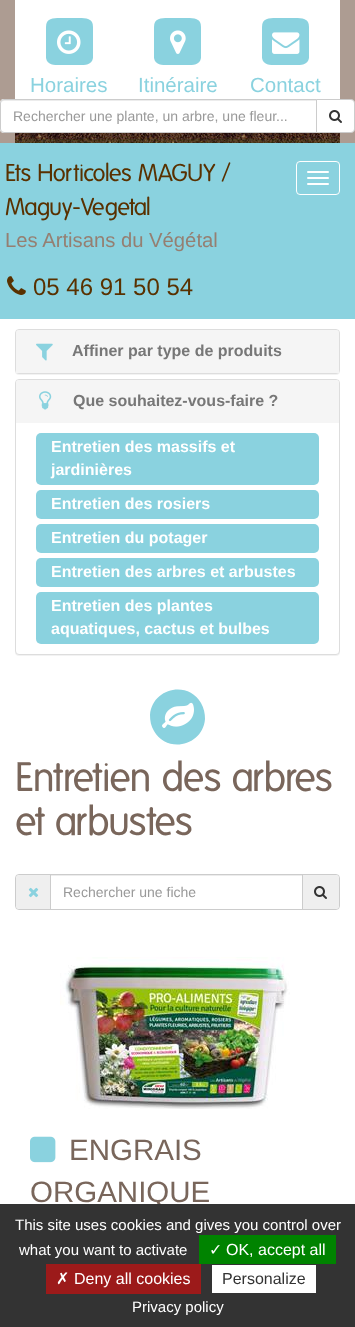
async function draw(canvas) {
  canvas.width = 355;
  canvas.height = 1327;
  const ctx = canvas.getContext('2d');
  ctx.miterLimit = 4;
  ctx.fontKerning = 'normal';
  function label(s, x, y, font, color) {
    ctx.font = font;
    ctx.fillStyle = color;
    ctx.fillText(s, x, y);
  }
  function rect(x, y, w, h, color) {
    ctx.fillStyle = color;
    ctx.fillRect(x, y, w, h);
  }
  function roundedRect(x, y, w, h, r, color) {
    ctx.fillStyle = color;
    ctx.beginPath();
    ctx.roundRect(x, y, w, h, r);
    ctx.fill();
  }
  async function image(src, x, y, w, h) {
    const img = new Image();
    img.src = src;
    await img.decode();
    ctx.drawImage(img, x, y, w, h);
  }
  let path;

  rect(0, 0, 355, 1327, '#fff');
  rect(0, 0, 355, 143, '#ad9c92');
  rect(15, 0, 325, 143, '#fff');
  await image('assets/img1.png', 15, 133, 325, 10);
  ctx.fillStyle = '#8ad2df';
  path = new Path2D('M93 27V58C92 65 85 65 79 65H60C54 65 47 65 46 58V27C46 18 53 18 60 18H79C86 18 93 18 93 27Z');
  ctx.fill(path);
  await image('assets/img2.png', 57, 30, 24, 24);
  label('Horaires', 30, 92, '20.5px Liberation Sans', '#8ad2df');
  path = new Path2D('M201 27V58C200 65 193 65 187 65H168C162 65 155 65 154 58V27C154 18 161 18 168 18H187C194 18 201 18 201 27Z');
  ctx.fill(path);
  await image('assets/img3.png', 170, 30, 16, 24);
  label('Itinéraire', 138, 92, '20.5px Liberation Sans', '#8ad2df');
  path = new Path2D('M309 27V58C308 65 301 65 295 65H276C270 65 263 65 262 58V27C262 18 269 18 276 18H295C302 18 309 18 309 27Z');
  ctx.fill(path);
  await image('assets/img4.png', 272, 32, 28, 22);
  label('Contact', 250, 92, '20.5px Liberation Sans', '#8ad2df');
  ctx.fillStyle = '#fff';
  ctx.beginPath();
  ctx.roundRect(0, 99, 317, 34, [4, 0, 0, 4]);
  ctx.fill();
  ctx.fillStyle = '#ececec';
  path = new Path2D('M4 101H316V100H4C2 100 1 102 1 104C1 102 2 101 4 101Z');
  ctx.fill(path);
  ctx.beginPath();
  ctx.roundRect(0.5, 99.5, 316, 33, [3.5, 0, 0, 3.5]);
  ctx.strokeStyle = '#ccc';
  ctx.stroke();
  label('Rechercher une plante, un arbre, une fleur...', 13, 121, '14px Liberation Sans', '#999');
  ctx.fillStyle = '#fff';
  ctx.beginPath();
  ctx.roundRect(316.5, 99.5, 38, 33, [0, 3.5, 3.5, 0]);
  ctx.fill();
  ctx.stroke();
  await image('assets/img5.png', 329, 110, 13, 13);
  rect(0, 143, 355, 176, '#8ad2df');
  label('Ets Horticoles MAGUY /', 5, 181, '23.75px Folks', '#593100');
  label('Maguy-Vegetal', 5, 215, '23.75px Folks', '#593100');
  label('Les Artisans du Végétal', 5, 247, '20.25px Liberation Sans', '#957f72');
  ctx.beginPath();
  ctx.roundRect(296.5, 161.5, 43, 33, 3.5);
  ctx.strokeStyle = '#fff';
  ctx.stroke();
  roundedRect(307, 171, 22, 2, 1, '#fff');
  roundedRect(307, 177, 22, 2, 1, '#fff');
  roundedRect(307, 183, 22, 2, 1, '#fff');
  await image('assets/img6.png', 7, 276, 19, 19);
  label('05 46 91 50 54', 33, 295, '24px Liberation Sans', '#593100');
  ctx.fillStyle = '#0000000d';
  ctx.filter = 'blur(0.5px)';
  ctx.beginPath();
  ctx.roundRect(15, 330, 325, 45, 4);
  ctx.fill();
  ctx.filter = 'none';
  ctx.beginPath();
  ctx.roundRect(15.5, 329.5, 324, 44, 3.5);
  ctx.strokeStyle = '#ddd';
  ctx.stroke();
  ctx.fillStyle = '#f5f5f5';
  ctx.beginPath();
  ctx.roundRect(16, 330, 323, 43, [3, 3, 0, 0]);
  ctx.fill();
  await image('assets/img7.png', 36, 343, 17, 18);
  label('Affiner par type de produits', 72, 356, 'bold 16px Liberation Sans', '#777');
  ctx.fillStyle = '#0000000d';
  ctx.filter = 'blur(0.5px)';
  ctx.beginPath();
  ctx.roundRect(15, 380, 325, 276, 4);
  ctx.fill();
  ctx.filter = 'none';
  ctx.fillStyle = '#fff';
  ctx.beginPath();
  ctx.roundRect(15.5, 379.5, 324, 275, 3.5);
  ctx.fill();
  ctx.stroke();
  ctx.fillStyle = '#f5f5f5';
  ctx.beginPath();
  ctx.roundRect(16, 380, 323, 43, [3, 3, 0, 0]);
  ctx.fill();
  await image('assets/img8.png', 39, 391, 13, 19);
  label('Que souhaitez-vous-faire ?', 73, 406, 'bold 16px Liberation Sans', '#777');
  roundedRect(36, 433, 283, 52, 5, '#8ad2df');
  label('Entretien des massifs et', 51, 452, 'bold 16px Liberation Sans', '#fff');
  label('jardinières', 51, 475, 'bold 16px Liberation Sans', '#fff');
  roundedRect(36, 490, 283, 29, 5, '#8ad2df');
  label('Entretien des rosiers', 51, 509, 'bold 16px Liberation Sans', '#fff');
  roundedRect(36, 524, 283, 29, 5, '#8ad2df');
  label('Entretien du potager', 51, 543, 'bold 16px Liberation Sans', '#fff');
  roundedRect(36, 558, 283, 29, 5, '#8ad2df');
  label('Entretien des arbres et arbustes', 51, 577, 'bold 16px Liberation Sans', '#fff');
  roundedRect(36, 592, 283, 52, 5, '#8ad2df');
  label('Entretien des plantes', 51, 611, 'bold 16px Liberation Sans', '#fff');
  label('aquatiques, cactus et bulbes', 51, 634, 'bold 16px Liberation Sans', '#fff');
  ctx.fillStyle = '#8ad2df';
  path = new Path2D('M201 703C204 708 205 714 205 719C203 746 167 754 154 731C151 726 150 721 150 715C152 688 188 680 201 703Z');
  ctx.fill(path);
  await image('assets/img9.png', 162, 702, 32, 26);
  label('Entretien des arbres', 15, 791, '40px Folks', '#79665b');
  label('et arbustes', 15, 835, '40px Folks', '#79665b');
  ctx.beginPath();
  ctx.roundRect(15.5, 874.5, 324, 35, 3.5);
  ctx.strokeStyle = '#ccc';
  ctx.stroke();
  ctx.fillStyle = '#efefef';
  ctx.beginPath();
  ctx.roundRect(16, 875, 34, 34, [4, 0, 0, 4]);
  ctx.fill();
  await image('assets/img10.png', 28, 887, 11, 11);
  rect(51, 875, 251, 1, '#ececec');
  rect(302, 875, 1, 34, '#ccc');
  rect(50, 875, 1, 34, '#ccc');
  label('Rechercher une fiche', 63, 897, '14px Liberation Sans', '#999');
  ctx.fillStyle = '#efefef';
  ctx.beginPath();
  ctx.roundRect(303, 875, 36, 34, [0, 4, 4, 0]);
  ctx.fill();
  await image('assets/img11.png', 314, 886, 13, 13);
  await image('assets/img12.png', 60, 957, 230, 152);
  await image('assets/img13.png', 30, 1136, 26, 27);
  label('ENGRAIS', 69, 1160, '29.5px Liberation Sans', '#79665b');
  label('ORGANIQUE', 30, 1202, '29.5px Liberation Sans', '#79665b');
  rect(0, 1204, 355, 123, '#333');
  label('This site uses cookies and gives you control over', 15, 1230, '15px Liberation Sans', '#fff');
  label('what you want to activate', 19, 1255, '15px Liberation Sans', '#fff');
  rect(199, 1235, 137, 29, '#008300');
  label('✓', 209, 1255, '16px DejaVu Sans', '#fff');
  label('OK, accept all', 226, 1255, '16px Liberation Sans', '#fff');
  rect(46, 1264, 155, 30, '#9c1a1a');
  label('✗', 56, 1284, '16px DejaVu Sans', '#fff');
  label('Deny all cookies', 74, 1284, '16px Liberation Sans', '#fff');
  rect(212, 1265, 104, 28, '#fff');
  label('Personalize', 222, 1284, '16px Liberation Sans', '#333');
  label('Privacy policy', 132, 1312, '15px Liberation Sans', '#fff');
}

draw(document.querySelector('canvas'));
